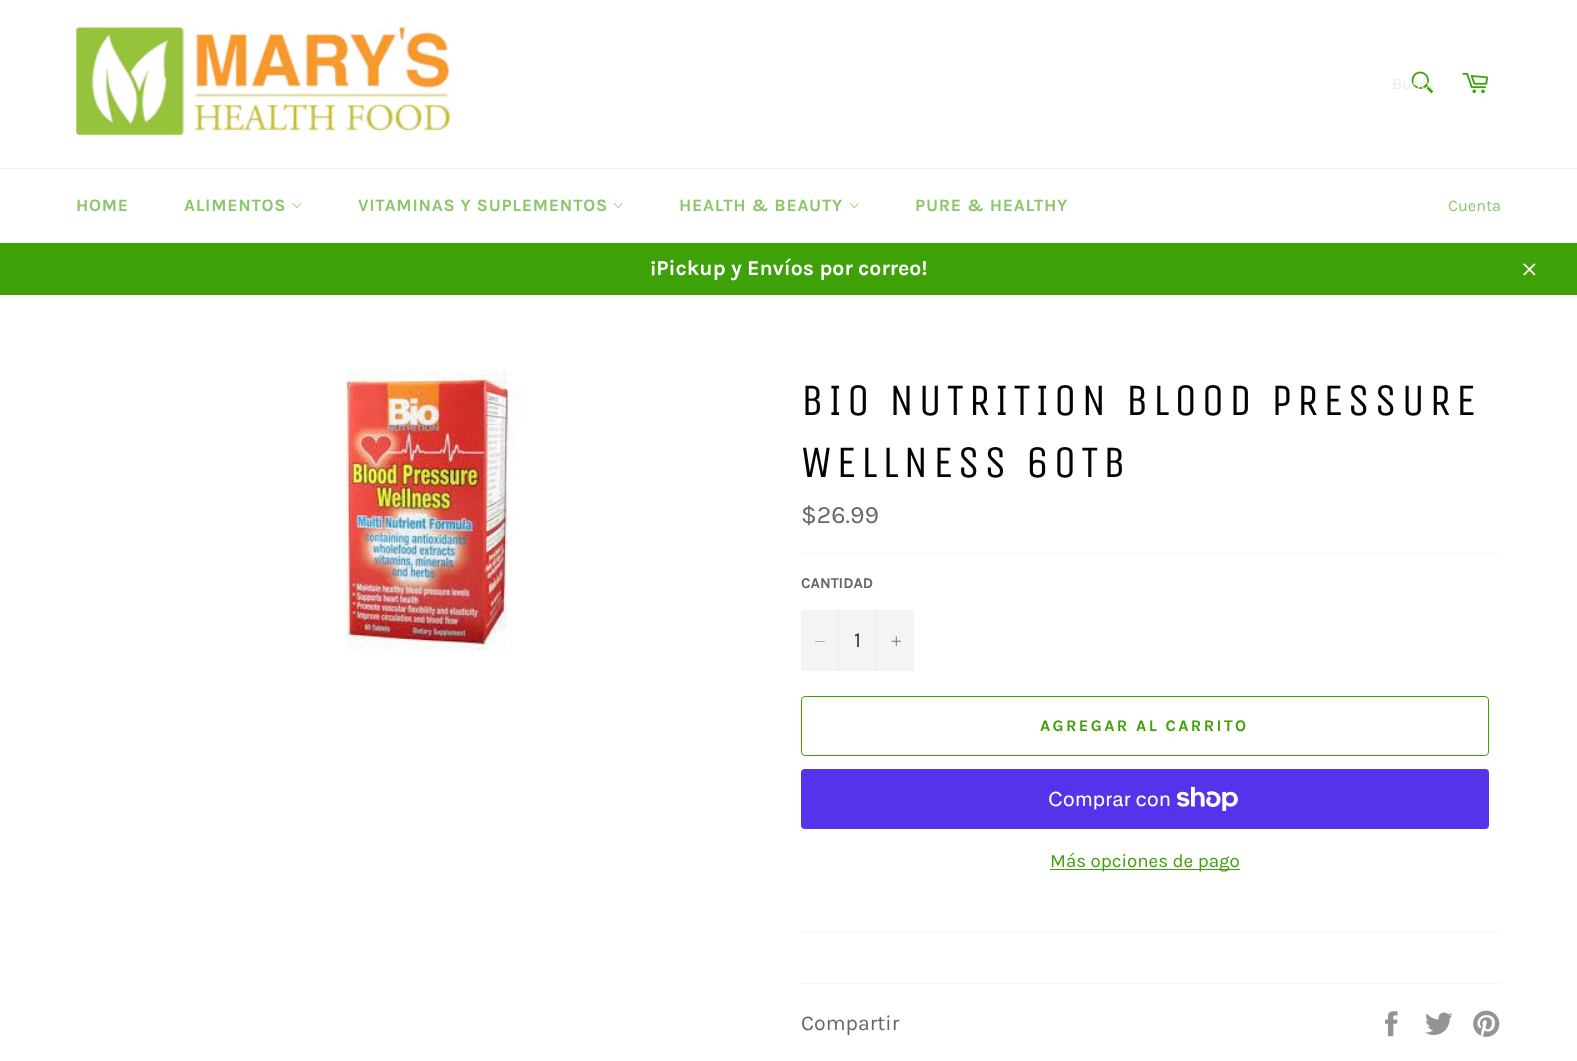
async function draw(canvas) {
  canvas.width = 1577;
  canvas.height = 1061;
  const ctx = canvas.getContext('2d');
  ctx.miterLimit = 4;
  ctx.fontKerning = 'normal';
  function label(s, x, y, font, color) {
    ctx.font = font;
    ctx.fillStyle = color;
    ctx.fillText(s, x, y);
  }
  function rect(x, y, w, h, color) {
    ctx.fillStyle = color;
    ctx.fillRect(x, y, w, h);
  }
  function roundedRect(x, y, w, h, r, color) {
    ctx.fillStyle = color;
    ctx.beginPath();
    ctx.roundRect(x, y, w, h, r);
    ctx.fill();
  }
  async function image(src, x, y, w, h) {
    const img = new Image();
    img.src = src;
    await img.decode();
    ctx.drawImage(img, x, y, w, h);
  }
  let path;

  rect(0, 0, 1577, 1061, '#fff');
  await image('assets/img1.png', 76, 25, 376, 118);
  await image('assets/img2.png', 1411, 71, 23, 23);
  ctx.save();
  ctx.beginPath();
  ctx.rect(1393, 75, 40, 19);
  ctx.clip();
  label('Busca', 1392, 89, '16.25px Karla', '#e8f4e1');
  ctx.restore();
  await image('assets/img3.png', 1462, 73, 26, 21);
  rect(0, 168, 1577, 1, '#f2f2f2');
  ctx.letterSpacing = '0.75px';
  label('HOME', 76, 211, 'bold 17.5px Karla', '#8bc76a');
  label('ALIMENTOS', 184, 211, 'bold 17.5px Karla', '#8bc76a');
  await image('assets/img4.png', 292, 203, 10, 6);
  label('VITAMINAS Y SUPLEMENTOS', 358, 211, 'bold 17.5px Karla', '#8bc76a');
  await image('assets/img5.png', 613, 203, 10, 6);
  label('HEALTH & BEAUTY', 679, 211, 'bold 17.5px Karla', '#8bc76a');
  await image('assets/img6.png', 850, 203, 9, 6);
  label('PURE & HEALTHY', 915, 211, 'bold 17.5px Karla', '#8bc76a');
  ctx.letterSpacing = '0px';
  label('Cuenta', 1448, 211, '16.25px Karla', '#8bc76a');
  rect(0, 243, 1577, 52, '#3ea107');
  label('¡Pickup y Envíos por correo!', 650, 275, 'bold 21.25px Karla', '#fff');
  await image('assets/img7.png', 1523, 263, 13, 13);
  await image('assets/img8.png', 345, 370, 181, 281);
  ctx.letterSpacing = '4.5px';
  label('BIO NUTRITION BLOOD PRESSURE', 801, 415, '45px Unica One', '#030303');
  label('WELLNESS 60TB', 801, 477, '45px Unica One', '#030303');
  ctx.letterSpacing = '0px';
  label('$26.99', 801, 523, '25px Karla', '#666');
  rect(801, 553, 700, 1, '#f7f7f7');
  label('CANTIDAD', 801, 588, 'bold 15px Karla', '#666');
  rect(801, 610, 113, 61, '#f4f4f4');
  rect(838, 610, 1, 61, '#e7e7e7');
  ctx.fillStyle = '#666';
  path = new Path2D('M825 641V641.5H815V641Z');
  ctx.fill(path, 'evenodd');
  label('1', 854, 647, '21.25px Karla', '#333');
  rect(876, 610, 1, 61, '#e7e7e7');
  await image('assets/img9.png', 891, 636, 10, 10);
  ctx.beginPath();
  ctx.roundRect(801.5, 696.5, 687, 59, 3.5);
  ctx.strokeStyle = '#3ea107';
  ctx.stroke();
  ctx.letterSpacing = '2.4px';
  label('AGREGAR AL CARRITO', 1040, 731, 'bold 16.25px Karla', '#3ea107');
  roundedRect(801, 769, 688, 60, 4, '#5433eb');
  ctx.letterSpacing = '0px';
  label('Comprar con', 1048, 806, '20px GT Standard', '#fff');
  await image('assets/img10.png', 1176, 786, 62, 25);
  rect(1050, 869, 190, 1, '#3ea107');
  label('Más opciones de pago', 1050, 867, '18.75px Karla', '#3ea107');
  rect(801, 931, 700, 1, '#f7f7f7');
  rect(801, 983, 700, 1, '#f7f7f7');
  label('Compartir', 801, 1030, '21.25px Karla', '#666');
  await image('assets/img11.png', 1385, 1011, 13, 26);
  await image('assets/img12.png', 1425, 1012, 28, 23);
  await image('assets/img13.png', 1473, 1010, 27, 27);
}

draw(document.querySelector('canvas'));
